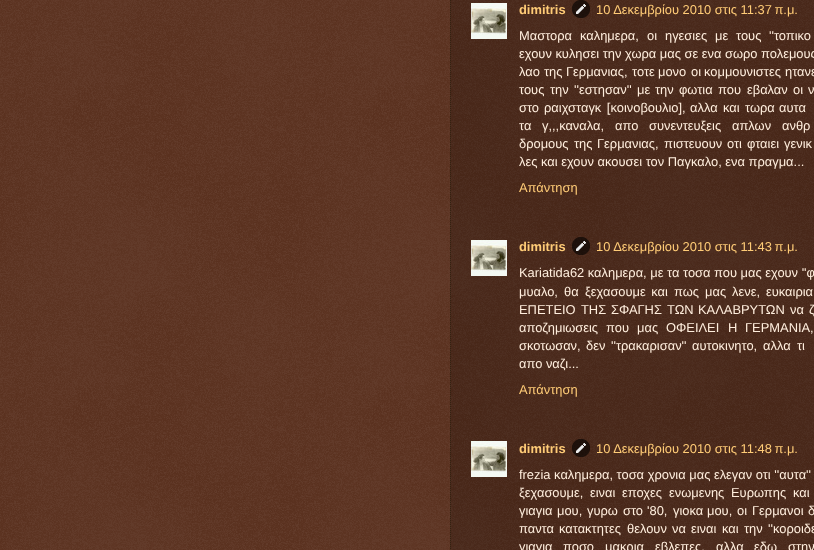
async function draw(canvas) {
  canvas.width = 814;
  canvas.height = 550;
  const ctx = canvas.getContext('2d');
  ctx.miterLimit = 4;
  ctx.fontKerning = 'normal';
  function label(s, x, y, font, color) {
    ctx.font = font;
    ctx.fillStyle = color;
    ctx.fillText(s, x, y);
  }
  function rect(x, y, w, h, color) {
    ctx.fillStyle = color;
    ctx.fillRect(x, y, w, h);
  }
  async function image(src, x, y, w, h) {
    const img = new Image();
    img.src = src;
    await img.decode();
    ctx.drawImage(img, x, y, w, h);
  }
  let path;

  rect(0, 0, 814, 550, '#441500');
  await image('assets/img1.png', 0, 0, 814, 550);
  rect(450, 0, 364, 550, '#00000033');
  path = new Path2D('M450.5-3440V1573');
  ctx.strokeStyle = '#321';
  ctx.setLineDash([1, 1]);
  ctx.stroke(path);
  await image('assets/img2.png', 471, 3, 36, 36);
  label('dimitris', 519, 14, 'bold 12.9px Liberation Sans', '#fc7');
  await image('assets/img3.png', 572, 0, 18, 18);
  label('10 Δεκεμβρίου 2010 στις 11:37 π.μ.', 596, 14, '12.9px Liberation Sans', '#fc7');
  label('Μαστορα', 519, 40, '12.9px Liberation Sans', '#fed');
  label('καλημερα,', 580, 40, '12.9px Liberation Sans', '#fed');
  label('οι', 647, 40, '12.9px Liberation Sans', '#fed');
  label('ηγεσιες', 665, 40, '12.9px Liberation Sans', '#fed');
  label('με', 715, 40, '12.9px Liberation Sans', '#fed');
  label('τους', 736, 40, '12.9px Liberation Sans', '#fed');
  label('\'\'τοπικο', 769, 40, '12.9px Liberation Sans', '#fed');
  label('εχουν κυλησει την χωρα μας σε ενα σωρο πολεμους', 519, 58, '12.9px Liberation Sans', '#fed');
  label('λαο', 519, 76, '12.9px Liberation Sans', '#fed');
  label('της', 544, 76, '12.9px Liberation Sans', '#fed');
  label('Γερμανιας,', 566, 76, '12.9px Liberation Sans', '#fed');
  label('τοτε', 632, 76, '12.9px Liberation Sans', '#fed');
  label('μονο', 658, 76, '12.9px Liberation Sans', '#fed');
  label('οι', 691, 76, '12.9px Liberation Sans', '#fed');
  label('κομμουνιστες', 704, 76, '12.9px Liberation Sans', '#fed');
  label('ητανε', 785, 76, '12.9px Liberation Sans', '#fed');
  label('τους', 519, 94, '12.9px Liberation Sans', '#fed');
  label('την', 550, 94, '12.9px Liberation Sans', '#fed');
  label('\'\'εστησαν\'\'', 574, 94, '12.9px Liberation Sans', '#fed');
  label('με', 637, 94, '12.9px Liberation Sans', '#fed');
  label('την', 655, 94, '12.9px Liberation Sans', '#fed');
  label('φωτια', 679, 94, '12.9px Liberation Sans', '#fed');
  label('που', 718, 94, '12.9px Liberation Sans', '#fed');
  label('εβαλαν', 747, 94, '12.9px Liberation Sans', '#fed');
  label('οι', 793, 94, '12.9px Liberation Sans', '#fed');
  label('ν', 808, 94, '12.9px Liberation Sans', '#fed');
  label('στο', 519, 112, '12.9px Liberation Sans', '#fed');
  ctx.wordSpacing = '2px';
  label('ραιχσταγκ [κοινοβουλιο],', 544, 112, '12.9px Liberation Sans', '#fed');
  ctx.wordSpacing = '0px';
  label('αλλα', 690, 112, '12.9px Liberation Sans', '#fed');
  label('και', 723, 112, '12.9px Liberation Sans', '#fed');
  label('τωρα', 745, 112, '12.9px Liberation Sans', '#fed');
  label('αυτα', 779, 112, '12.9px Liberation Sans', '#fed');
  ctx.wordSpacing = '7px';
  label('τα γ,,,καναλα,', 519, 130, '12.9px Liberation Sans', '#fed');
  ctx.wordSpacing = '0px';
  label('απο', 615, 130, '12.9px Liberation Sans', '#fed');
  label('συνεντευξεις', 649, 130, '12.9px Liberation Sans', '#fed');
  label('απλων', 732, 130, '12.9px Liberation Sans', '#fed');
  label('ανθρ', 782, 130, '12.9px Liberation Sans', '#fed');
  label('δρομους', 519, 148, '12.9px Liberation Sans', '#fed');
  label('της', 574, 148, '12.9px Liberation Sans', '#fed');
  label('Γερμανιας,', 597, 148, '12.9px Liberation Sans', '#fed');
  label('πιστευουν', 664, 148, '12.9px Liberation Sans', '#fed');
  label('οτι', 727, 148, '12.9px Liberation Sans', '#fed');
  label('φταιει', 747, 148, '12.9px Liberation Sans', '#fed');
  label('γενικ', 784, 148, '12.9px Liberation Sans', '#fed');
  label('λες και εχουν ακουσει τον Παγκαλο, ενα πραγμα...', 519, 166, '12.9px Liberation Sans', '#fed');
  label('Απάντηση', 519, 192, '12.9px Liberation Sans', '#fc7');
  await image('assets/img2.png', 471, 240, 36, 36);
  label('dimitris', 519, 251, 'bold 12.9px Liberation Sans', '#fc7');
  await image('assets/img4.png', 572, 237, 18, 18);
  label('10 Δεκεμβρίου 2010 στις 11:43 π.μ.', 596, 251, '12.9px Liberation Sans', '#fc7');
  label('Kariatida62 καλημερα, με τα τοσα που μας εχουν \'\'φ', 519, 277, '12.9px Liberation Sans', '#fed');
  label('μυαλο,', 519, 296, '12.9px Liberation Sans', '#fed');
  label('θα', 564, 296, '12.9px Liberation Sans', '#fed');
  ctx.wordSpacing = '2px';
  label('ξεχασουμε και', 585, 296, '12.9px Liberation Sans', '#fed');
  ctx.wordSpacing = '0px';
  label('πως', 674, 296, '12.9px Liberation Sans', '#fed');
  label('μας', 705, 296, '12.9px Liberation Sans', '#fed');
  label('λενε,', 732, 296, '12.9px Liberation Sans', '#fed');
  label('ευκαιρια', 766, 296, '12.9px Liberation Sans', '#fed');
  label('ΕΠΕΤΕΙΟ', 519, 314, '12.9px Liberation Sans', '#fed');
  label('ΤΗΣ', 581, 314, '12.9px Liberation Sans', '#fed');
  label('ΣΦΑΓΗΣ', 611, 314, '12.9px Liberation Sans', '#fed');
  label('ΤΩΝ', 667, 314, '12.9px Liberation Sans', '#fed');
  label('ΚΑΛΑΒΡΥΤΩΝ', 698, 314, '12.9px Liberation Sans', '#fed');
  label('να', 790, 314, '12.9px Liberation Sans', '#fed');
  label('ζ', 809, 314, '12.9px Liberation Sans', '#fed');
  label('αποζημιωσεις', 519, 332, '12.9px Liberation Sans', '#fed');
  label('που', 606, 332, '12.9px Liberation Sans', '#fed');
  label('μας', 637, 332, '12.9px Liberation Sans', '#fed');
  label('ΟΦΕΙΛΕΙ', 666, 332, '12.9px Liberation Sans', '#fed');
  label('Η', 728, 332, '12.9px Liberation Sans', '#fed');
  label('ΓΕΡΜΑΝΙΑ,', 745, 332, '12.9px Liberation Sans', '#fed');
  label('σκοτωσαν,', 519, 350, '12.9px Liberation Sans', '#fed');
  label('δεν', 586, 350, '12.9px Liberation Sans', '#fed');
  label('\'\'τρακαρισαν\'\'', 611, 350, '12.9px Liberation Sans', '#fed');
  label('αυτοκινητο,', 692, 350, '12.9px Liberation Sans', '#fed');
  label('αλλα', 763, 350, '12.9px Liberation Sans', '#fed');
  label('τι', 797, 350, '12.9px Liberation Sans', '#fed');
  label('απο ναζι...', 519, 368, '12.9px Liberation Sans', '#fed');
  label('Απάντηση', 519, 394, '12.9px Liberation Sans', '#fc7');
  await image('assets/img2.png', 471, 441, 36, 36);
  label('dimitris', 519, 453, 'bold 12.9px Liberation Sans', '#fc7');
  await image('assets/img5.png', 572, 439, 18, 18);
  label('10 Δεκεμβρίου 2010 στις 11:48 π.μ.', 596, 453, '12.9px Liberation Sans', '#fc7');
  label('frezia καλημερα, τοσα χρονια μας ελεγαν οτι \'\'αυτα\'\'', 519, 479, '12.9px Liberation Sans', '#fed');
  label('ξεχασουμε,', 519, 497, '12.9px Liberation Sans', '#fed');
  label('ειναι', 590, 497, '12.9px Liberation Sans', '#fed');
  label('εποχες', 622, 497, '12.9px Liberation Sans', '#fed');
  label('ενωμενης', 669, 497, '12.9px Liberation Sans', '#fed');
  label('Ευρωπης', 731, 497, '12.9px Liberation Sans', '#fed');
  label('και', 793, 497, '12.9px Liberation Sans', '#fed');
  label('γιαγια', 519, 515, '12.9px Liberation Sans', '#fed');
  label('μου,', 557, 515, '12.9px Liberation Sans', '#fed');
  label('γυρω', 587, 515, '12.9px Liberation Sans', '#fed');
  label('στο', 623, 515, '12.9px Liberation Sans', '#fed');
  label('\'80,', 647, 515, '12.9px Liberation Sans', '#fed');
  label('γιοκα', 673, 515, '12.9px Liberation Sans', '#fed');
  label('μου,', 707, 515, '12.9px Liberation Sans', '#fed');
  label('οι', 737, 515, '12.9px Liberation Sans', '#fed');
  label('Γερμανοι', 752, 515, '12.9px Liberation Sans', '#fed');
  label('δ', 808, 515, '12.9px Liberation Sans', '#fed');
  label('παντα', 519, 533, '12.9px Liberation Sans', '#fed');
  label('κατακτητες', 559, 533, '12.9px Liberation Sans', '#fed');
  label('θελουν', 627, 533, '12.9px Liberation Sans', '#fed');
  label('να', 672, 533, '12.9px Liberation Sans', '#fed');
  label('ειναι', 691, 533, '12.9px Liberation Sans', '#fed');
  label('και', 722, 533, '12.9px Liberation Sans', '#fed');
  label('την', 744, 533, '12.9px Liberation Sans', '#fed');
  label('\'\'κοροιδε', 768, 533, '12.9px Liberation Sans', '#fed');
  label('γιαγια', 519, 551, '12.9px Liberation Sans', '#fed');
  label('ποσο', 563, 551, '12.9px Liberation Sans', '#fed');
  label('μακρια', 605, 551, '12.9px Liberation Sans', '#fed');
  label('εβλεπες,', 655, 551, '12.9px Liberation Sans', '#fed');
  label('αλλα', 716, 551, '12.9px Liberation Sans', '#fed');
  label('εδω', 754, 551, '12.9px Liberation Sans', '#fed');
  label('στην', 788, 551, '12.9px Liberation Sans', '#fed');
}

draw(document.querySelector('canvas'));
